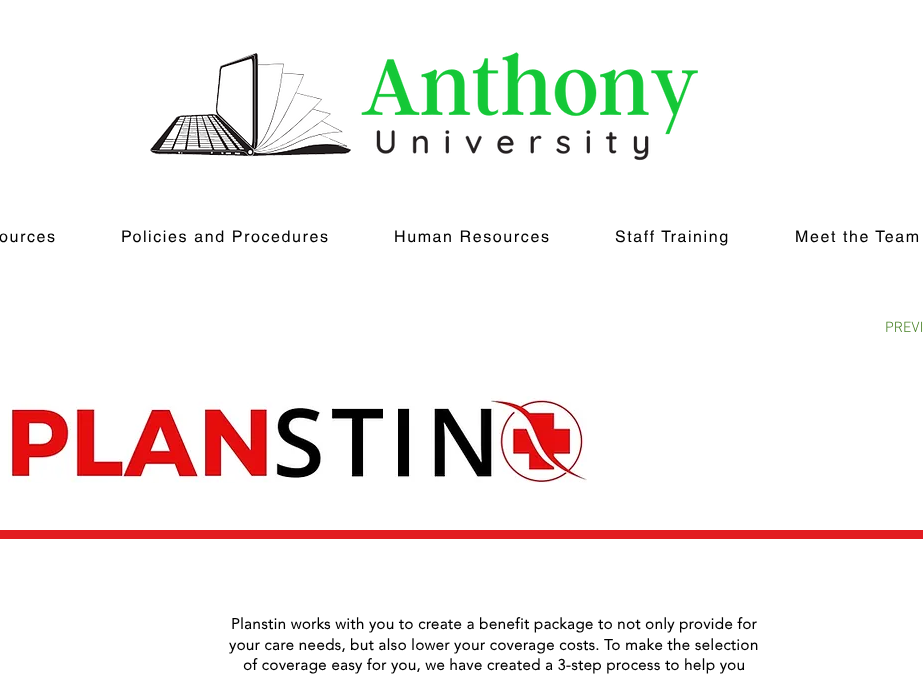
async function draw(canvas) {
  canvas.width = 923;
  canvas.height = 682;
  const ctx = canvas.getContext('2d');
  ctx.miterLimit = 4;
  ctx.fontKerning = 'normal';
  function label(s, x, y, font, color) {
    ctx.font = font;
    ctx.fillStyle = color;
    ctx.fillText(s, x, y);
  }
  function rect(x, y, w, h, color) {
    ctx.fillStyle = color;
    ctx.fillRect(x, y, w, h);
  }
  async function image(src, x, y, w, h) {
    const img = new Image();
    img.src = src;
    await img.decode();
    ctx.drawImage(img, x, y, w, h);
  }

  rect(0, 0, 923, 682, '#fff');
  await image('assets/img1.png', 150, 52, 548, 109);
  ctx.letterSpacing = '1.6px';
  label('ources', -1, 242, '16px helvetica', '#000');
  label('Policies and Procedures', 121, 242, '16px helvetica', '#000');
  label('Human Resources', 394, 242, '16px helvetica', '#000');
  label('Staff Training', 615, 242, '16px helvetica', '#000');
  label('Meet the Team', 795, 242, '16px helvetica', '#000');
  ctx.letterSpacing = '0px';
  label('PREVI', 885, 332, '300 15px "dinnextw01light"', '#4b842a');
  await image('assets/img2.png', 8, 396, 579, 87);
  rect(0, 530, 923, 9, '#e21c21');
  ctx.letterSpacing = '0.45px';
  label('Planstin works with you to create a benefit package to not only provide for', 231, 629, 'bold 15px "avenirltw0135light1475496"', '#000');
  label('your care needs, but also lower your coverage costs. To make the selection', 229, 650, 'bold 15px "avenirltw0135light1475496"', '#000');
  label('of coverage easy for you, we have created a 3-step process to help you', 243, 670, 'bold 15px "avenirltw0135light1475496"', '#000');
}

draw(document.querySelector('canvas'));
